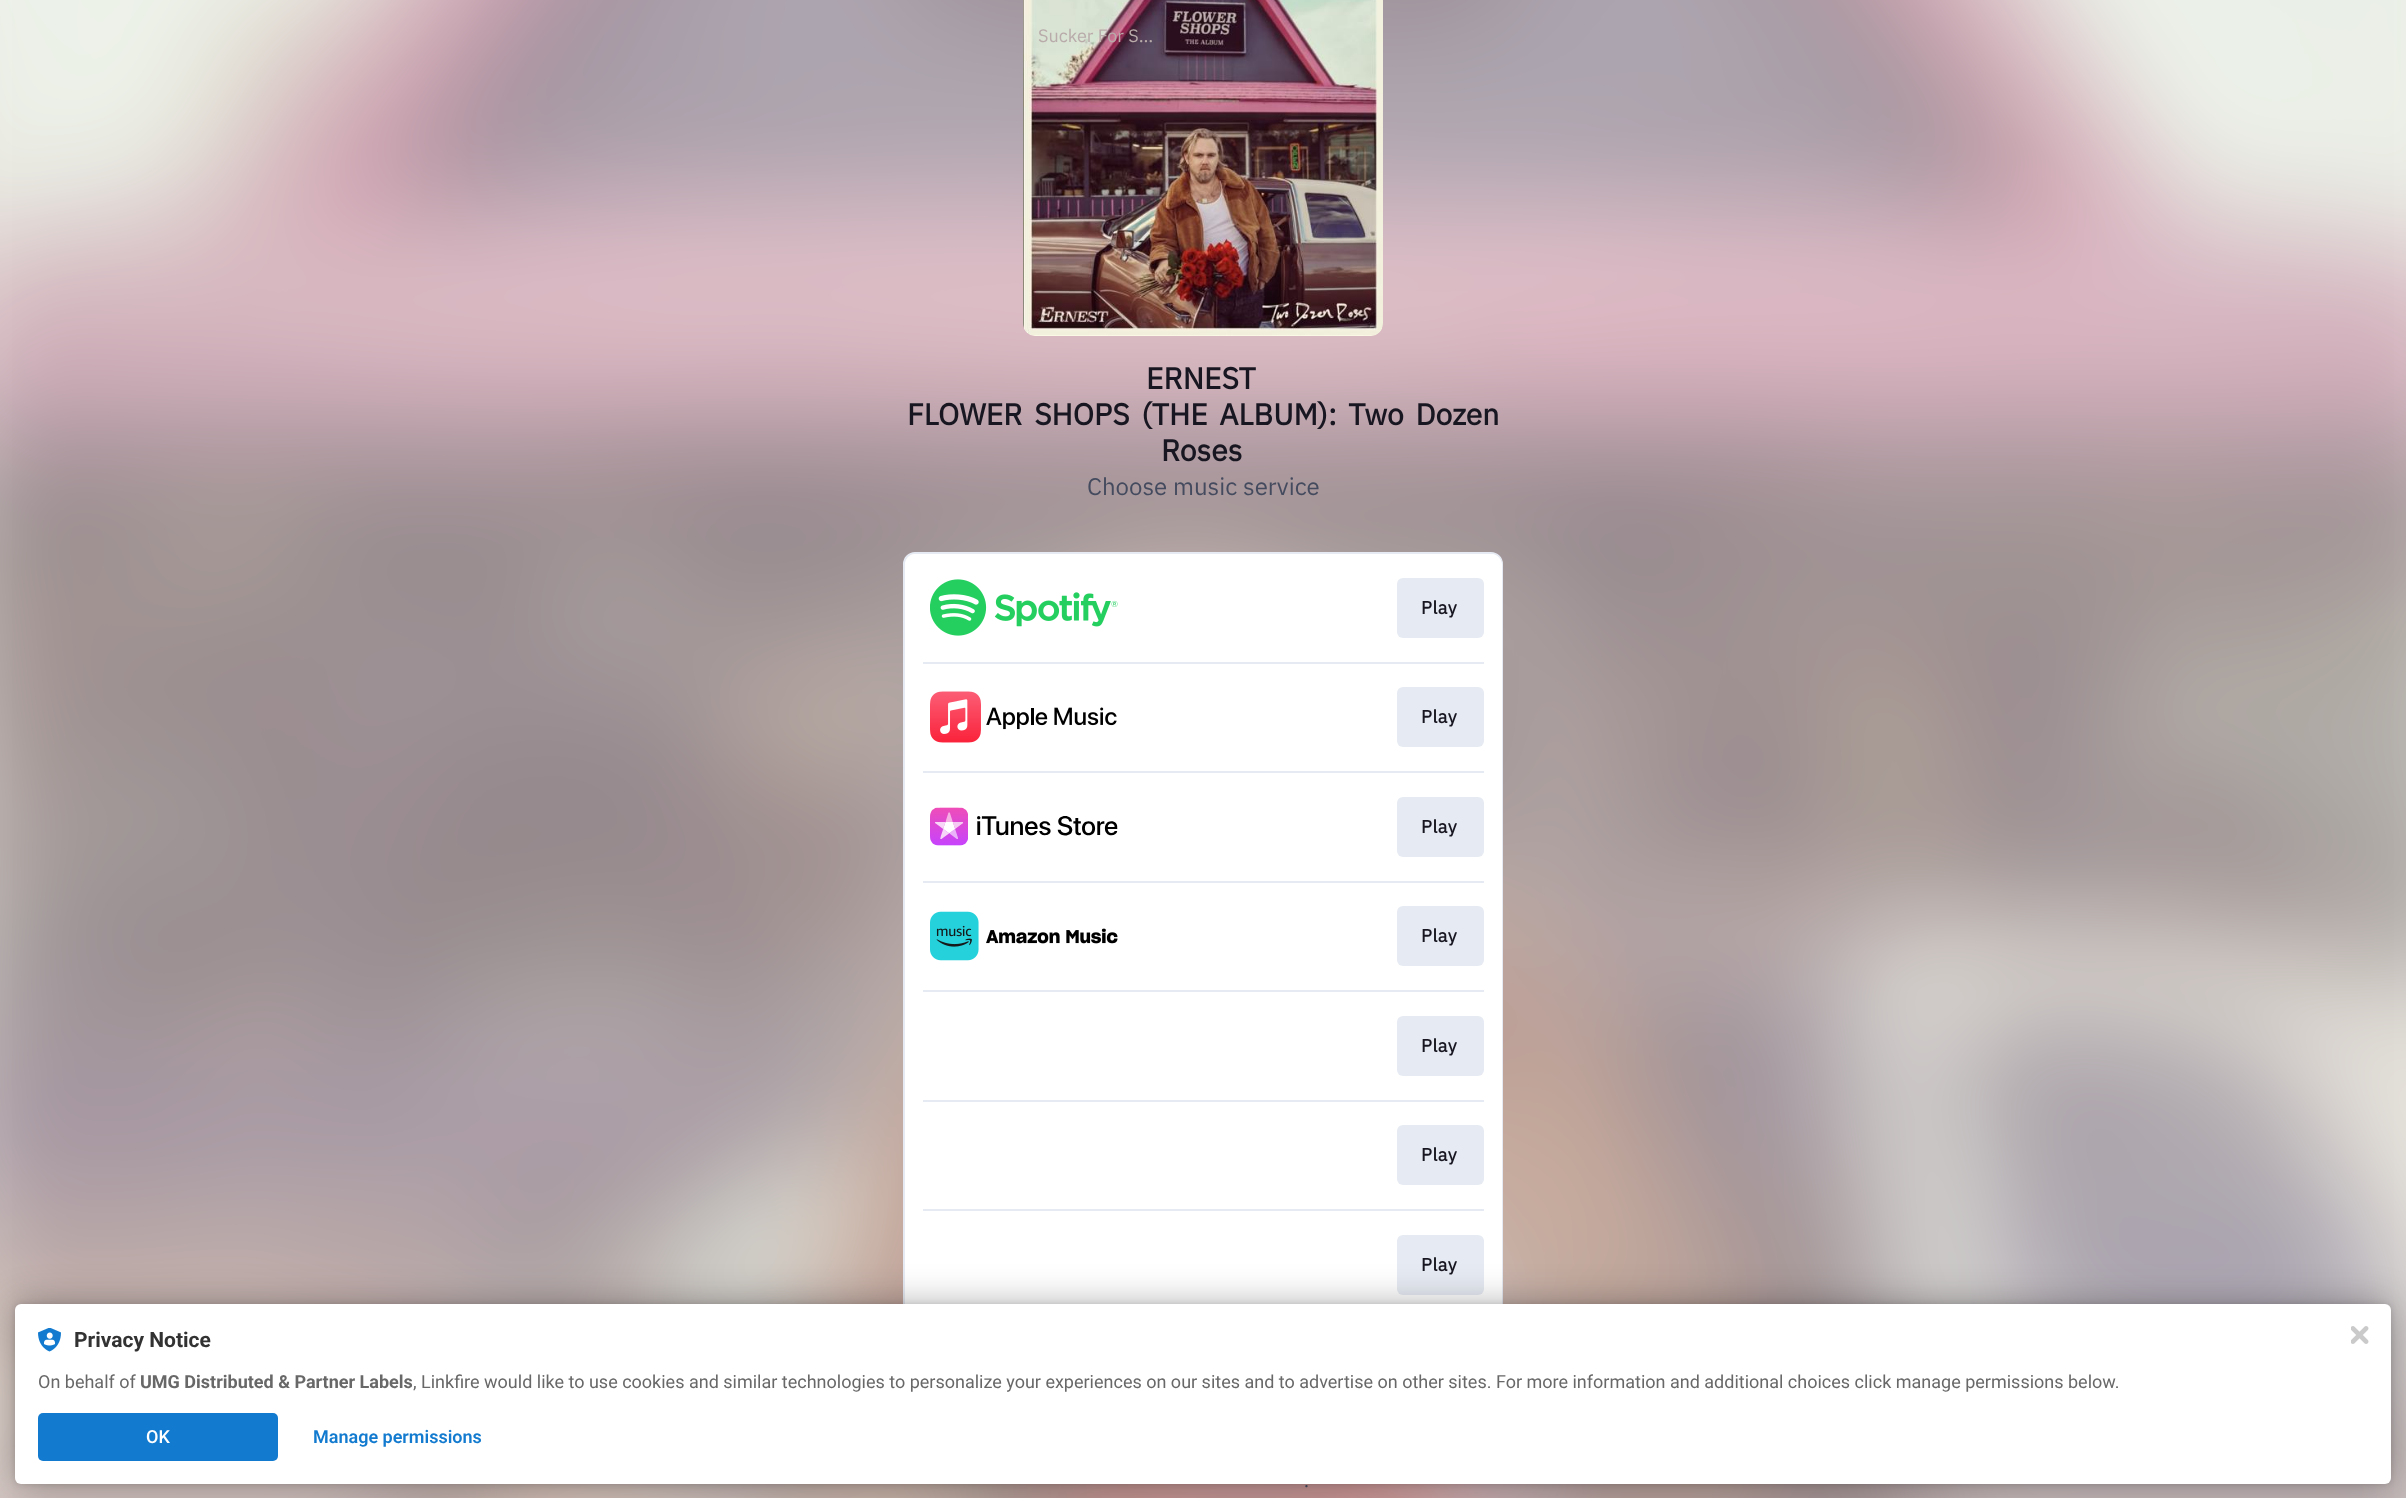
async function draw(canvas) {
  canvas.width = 2406;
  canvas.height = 1498;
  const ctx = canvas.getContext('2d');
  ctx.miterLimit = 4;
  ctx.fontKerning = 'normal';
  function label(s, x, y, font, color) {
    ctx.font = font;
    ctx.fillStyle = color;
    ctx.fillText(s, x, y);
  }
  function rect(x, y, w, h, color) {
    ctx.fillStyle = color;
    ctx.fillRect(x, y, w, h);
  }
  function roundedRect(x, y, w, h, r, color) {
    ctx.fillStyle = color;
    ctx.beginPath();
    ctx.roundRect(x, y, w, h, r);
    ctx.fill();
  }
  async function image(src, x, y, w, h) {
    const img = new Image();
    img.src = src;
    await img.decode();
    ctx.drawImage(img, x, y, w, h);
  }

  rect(0, 0, 2406, 1498, '#fff');
  await image('assets/img1.png', 0, 0, 2406, 1498);
  await image('assets/img2.png', 1023, 0, 360, 336);
  label('Sucker For S…', 1038, 42, '18px IBM Plex Sans', '#b8abaa');
  label('ERNEST', 1146, 389, 'bold 30px IBM Plex Sans', '#181721');
  ctx.wordSpacing = '4.5px';
  label('FLOWER SHOPS (THE ALBUM): Two Dozen', 907, 425, 'bold 30px IBM Plex Sans', '#181721');
  ctx.wordSpacing = '0px';
  label('Roses', 1161, 461, 'bold 30px IBM Plex Sans', '#181721');
  label('Choose music service', 1087, 495, '24px IBM Plex Sans', '#454b5f');
  ctx.fillStyle = '#fff';
  ctx.beginPath();
  ctx.roundRect(904, 553, 598, 876, 11);
  ctx.fill();
  ctx.strokeStyle = '#e6eaf2';
  ctx.lineWidth = 2;
  ctx.stroke();
  roundedRect(905, 554, 597, 874, 11, '#fff');
  await image('assets/img3.png', 930, 579, 188, 57);
  roundedRect(1397, 578, 87, 60, 6, '#e6eaf2');
  ctx.letterSpacing = '0.5px';
  label('Play', 1421, 614, 'bold 18px IBM Plex Sans', '#181721');
  rect(923, 662, 561, 2, '#e6eaf2');
  await image('assets/img4.png', 930, 691, 187, 52);
  roundedRect(1397, 687, 87, 60, 6, '#e6eaf2');
  label('Play', 1421, 723, 'bold 18px IBM Plex Sans', '#181721');
  rect(923, 771, 561, 2, '#e6eaf2');
  await image('assets/img5.png', 930, 807, 188, 39);
  roundedRect(1397, 797, 87, 60, 6, '#e6eaf2');
  label('Play', 1421, 833, 'bold 18px IBM Plex Sans', '#181721');
  rect(923, 881, 561, 2, '#e6eaf2');
  await image('assets/img6.png', 930, 911, 188, 50);
  roundedRect(1397, 906, 87, 60, 6, '#e6eaf2');
  label('Play', 1421, 942, 'bold 18px IBM Plex Sans', '#181721');
  rect(923, 990, 561, 2, '#e6eaf2');
  roundedRect(1397, 1016, 87, 60, 6, '#e6eaf2');
  label('Play', 1421, 1052, 'bold 18px IBM Plex Sans', '#181721');
  rect(923, 1100, 561, 2, '#e6eaf2');
  roundedRect(1397, 1125, 87, 60, 6, '#e6eaf2');
  label('Play', 1421, 1161, 'bold 18px IBM Plex Sans', '#181721');
  rect(923, 1209, 561, 2, '#e6eaf2');
  roundedRect(1397, 1235, 87, 60, 6, '#e6eaf2');
  label('Play', 1421, 1271, 'bold 18px IBM Plex Sans', '#181721');
  ctx.letterSpacing = '0px';
  label('.', 1304, 1487, '18px IBM Plex Sans', '#454b5f');
  ctx.fillStyle = '#0000001f';
  ctx.filter = 'blur(3px)';
  ctx.beginPath();
  ctx.roundRect(15, 1304, 2376, 180, 6);
  ctx.fill();
  ctx.filter = 'none';
  ctx.fillStyle = '#0000004d';
  ctx.filter = 'blur(18px)';
  ctx.beginPath();
  ctx.roundRect(15, 1304, 2376, 180, 6);
  ctx.fill();
  ctx.filter = 'none';
  roundedRect(15, 1304, 2376, 180, 6, '#fff');
  await image('assets/img7.png', 38, 1328, 23, 24);
  label('Privacy Notice', 74, 1347, 'bold 21px Roboto', '#323232');
  label('On behalf of', 38, 1388, '18px Roboto', '#686868');
  label('UMG Distributed & Partner Labels', 140, 1388, 'bold 18px Roboto', '#686868');
  label(', Linkfire would like to use cookies and similar technologies to personalize your experiences on our sites and to advertise on other sites. For more information and additional choices click manage permissions below.', 413, 1388, '18px Roboto', '#686868');
  roundedRect(38, 1413, 240, 48, 5, '#137bcf');
  label('OK', 146, 1443, '500 18px Roboto', '#fff');
  label('Manage permissions', 313, 1443, '600 18px Roboto', '#137bcf');
  await image('assets/img8.png', 2351, 1326, 18, 18);
}

draw(document.querySelector('canvas'));
